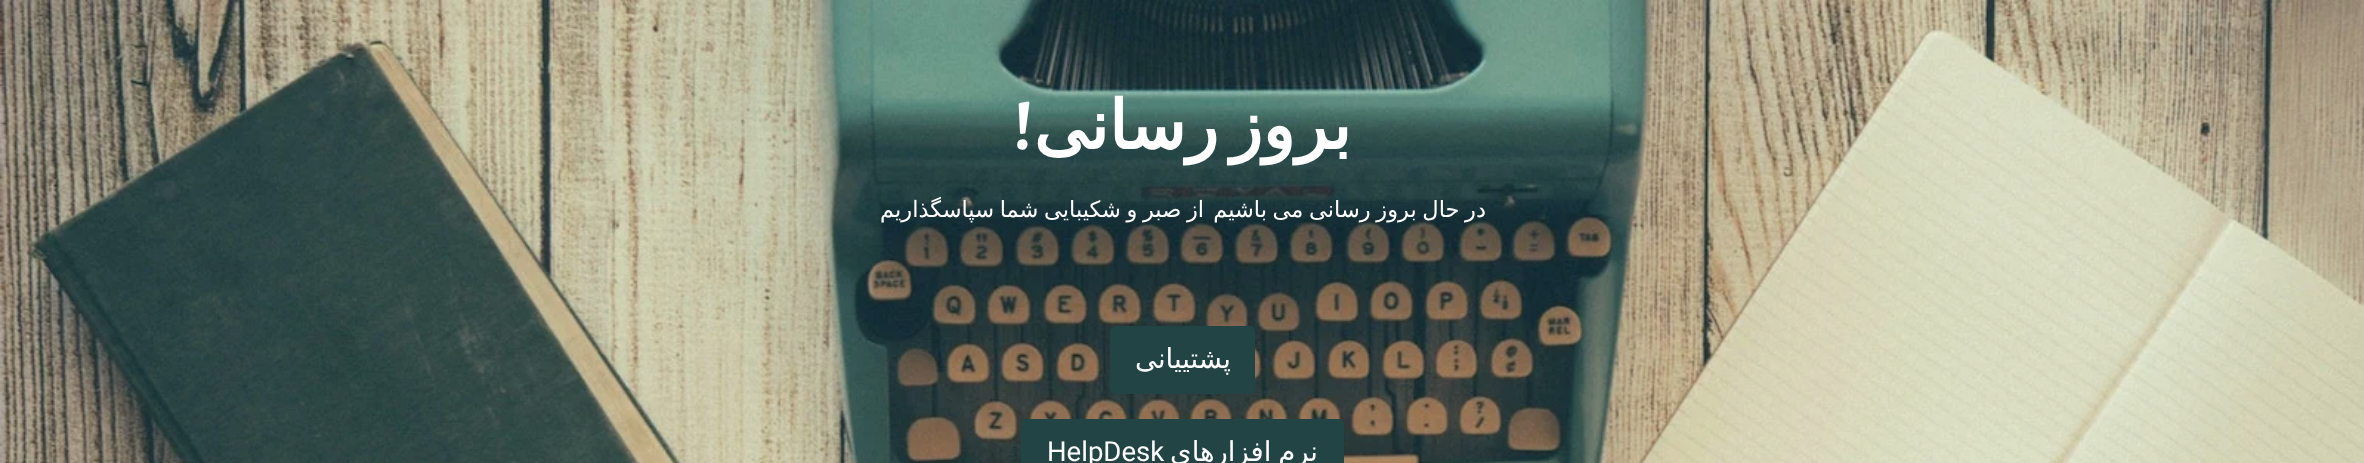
async function draw(canvas) {
  canvas.width = 2364;
  canvas.height = 463;
  const ctx = canvas.getContext('2d');
  ctx.miterLimit = 4;
  ctx.fontKerning = 'normal';
  function label(s, x, y, font, color) {
    ctx.font = font;
    ctx.fillStyle = color;
    ctx.fillText(s, x, y);
  }
  function rect(x, y, w, h, color) {
    ctx.fillStyle = color;
    ctx.fillRect(x, y, w, h);
  }
  function roundedRect(x, y, w, h, r, color) {
    ctx.fillStyle = color;
    ctx.beginPath();
    ctx.roundRect(x, y, w, h, r);
    ctx.fill();
  }
  async function image(src, x, y, w, h) {
    const img = new Image();
    img.src = src;
    await img.decode();
    ctx.drawImage(img, x, y, w, h);
  }

  rect(0, 0, 2364, 463, '#fff');
  await image('assets/img1.png', 0, 0, 2364, 463);
  ctx.wordSpacing = '-10px';
  ctx.direction = 'rtl';
  label('بروز رسانی', 1351, 149, 'bold 67.5px DejaVu Sans', '#fff');
  ctx.wordSpacing = '0px';
  label('!', 1033, 149, 'bold 67.5px Alegreya', '#fff');
  ctx.wordSpacing = '-1.5px';
  label('در حال بروز رسانی می باشیم', 1486, 217, '22.5px DejaVu Sans', '#fff');
  label('از صبر و شکیبایی شما سپاسگذاریم', 1204, 217, '22.5px DejaVu Sans', '#fff');
  roundedRect(1110, 326, 145, 68, 5, '#244');
  ctx.wordSpacing = '0px';
  label('پشتییانی', 1231, 368, '27.5px DejaVu Sans', '#fff');
  roundedRect(1021, 419, 323, 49, 5, '#244');
  ctx.wordSpacing = '-2px';
  label('نرم افزارهای', 1318, 461, '27.5px DejaVu Sans', '#fff');
  ctx.wordSpacing = '0px';
  ctx.direction = 'ltr';
  label('HelpDesk', 1047, 461, '27.5px Roboto', '#fff');
}

draw(document.querySelector('canvas'));
